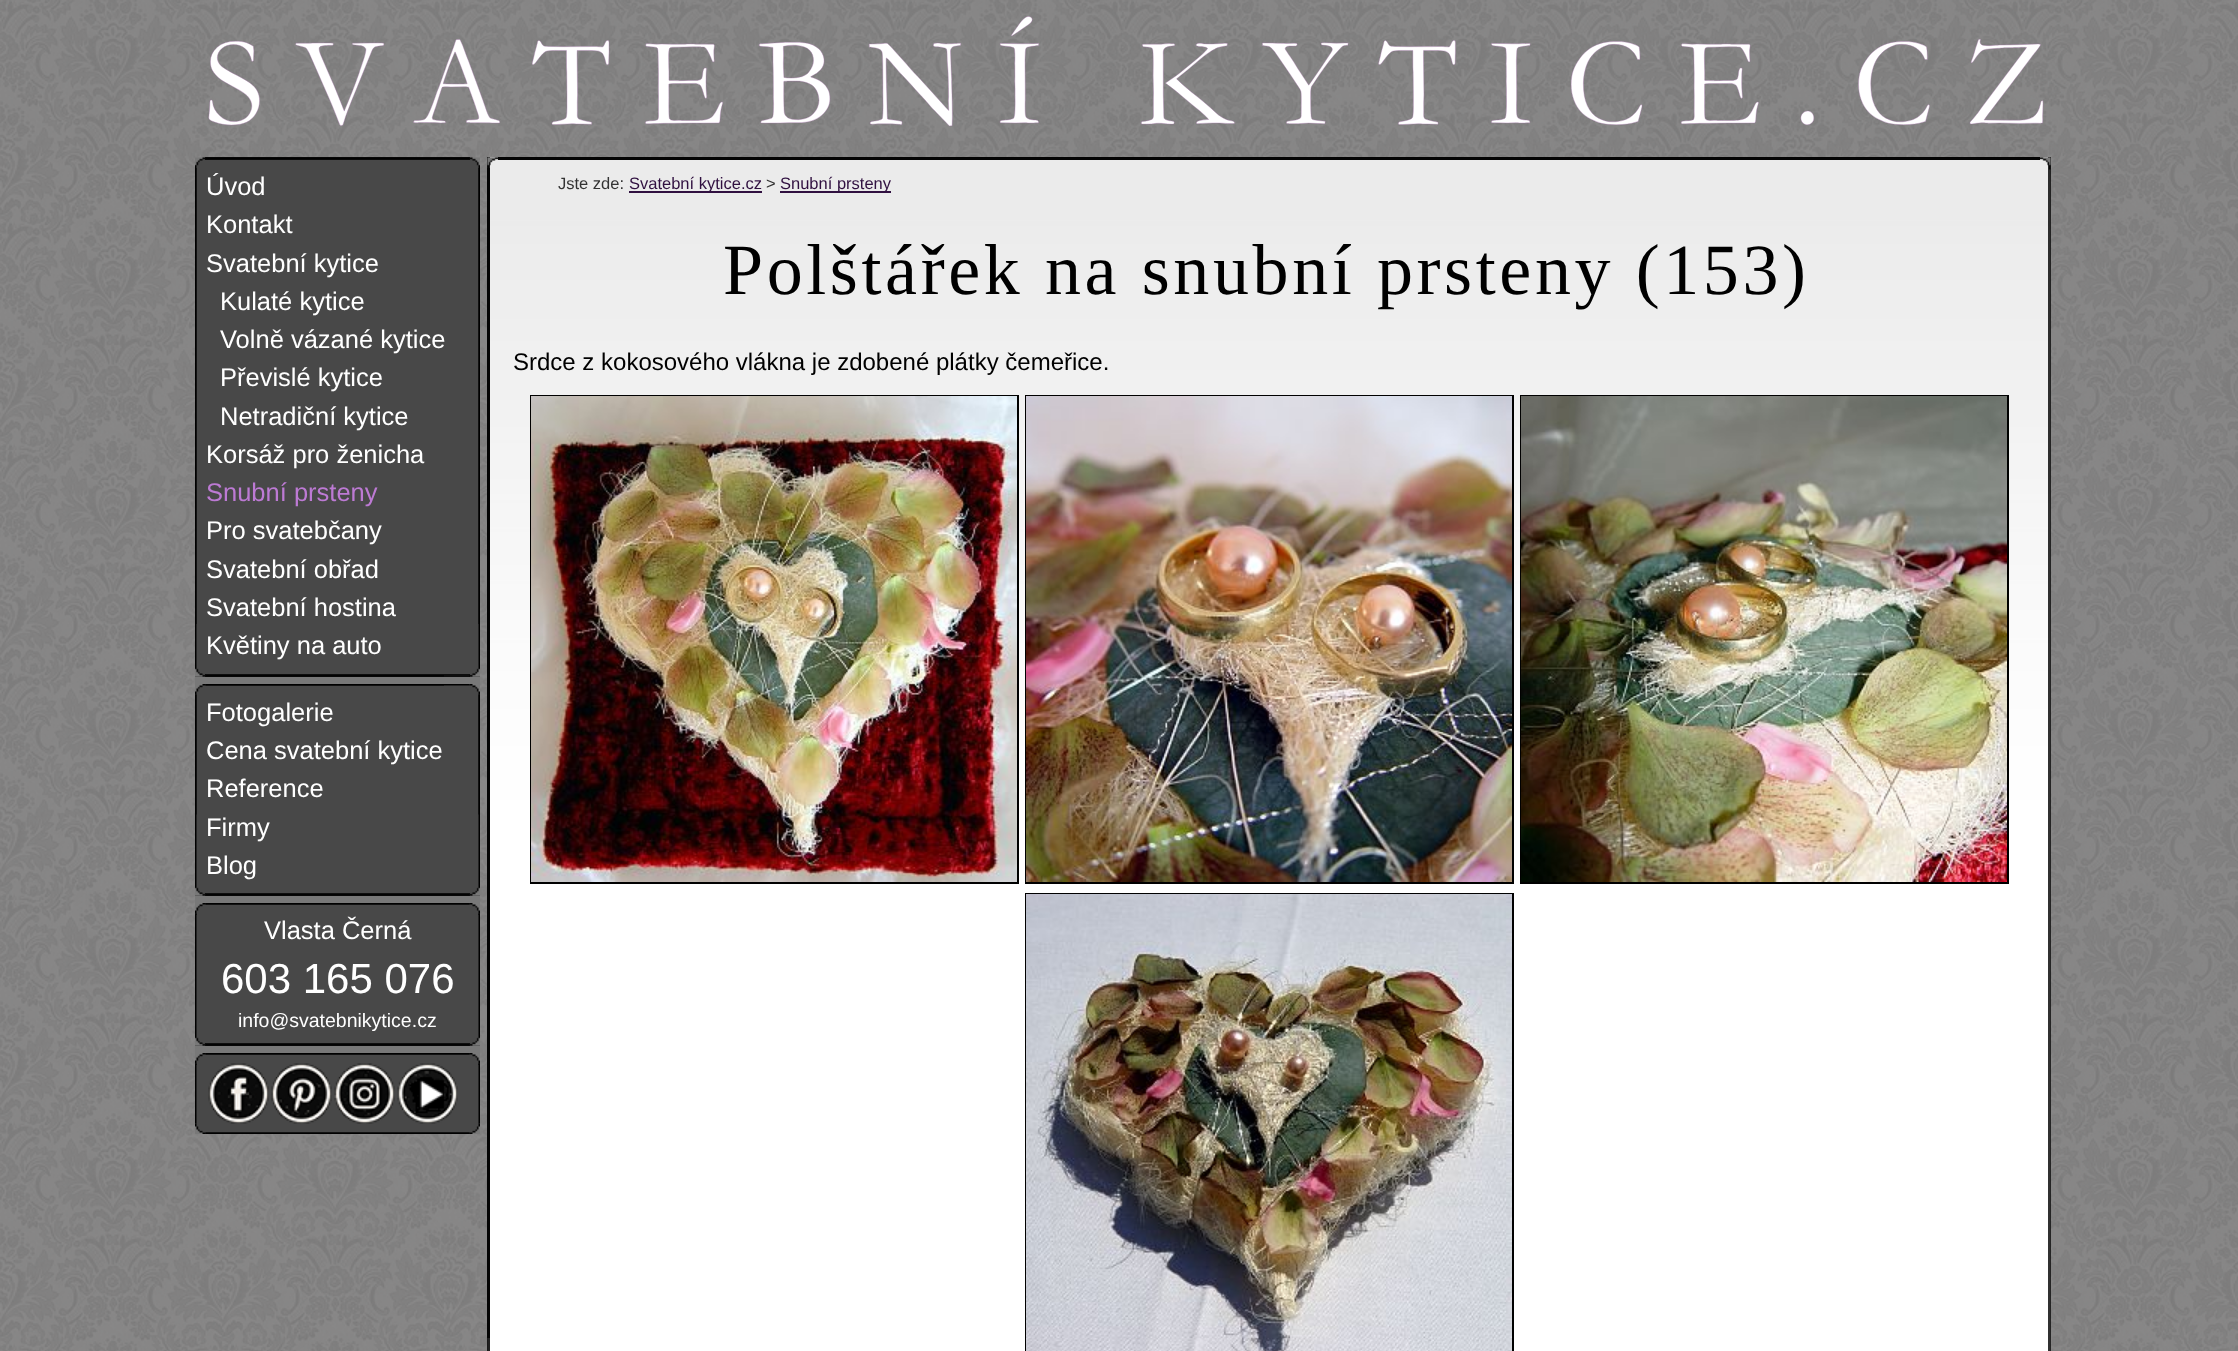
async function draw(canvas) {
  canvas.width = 2238;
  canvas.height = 1351;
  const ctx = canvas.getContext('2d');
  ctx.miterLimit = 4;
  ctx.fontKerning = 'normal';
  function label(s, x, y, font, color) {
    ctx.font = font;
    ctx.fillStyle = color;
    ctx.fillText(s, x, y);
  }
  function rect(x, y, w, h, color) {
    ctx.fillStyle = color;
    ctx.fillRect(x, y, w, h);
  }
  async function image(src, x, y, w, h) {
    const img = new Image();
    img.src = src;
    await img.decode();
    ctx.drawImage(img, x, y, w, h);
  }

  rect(0, 0, 2238, 1351, '#fff');
  await image('assets/img1.png', 0, 0, 2238, 1351);
  await image('assets/img2.png', 208, 16, 1836, 111);
  rect(195, 158, 285, 976, '#484848');
  rect(205, 157, 265, 3, '#000000de');
  await image('assets/img3.png', 195, 157, 11, 11);
  await image('assets/img4.png', 206, 157, 264, 2);
  await image('assets/img5.png', 470, 157, 10, 11);
  await image('assets/img6.png', 195, 168, 2, 498);
  rect(196, 168, 1, 456, '#121212');
  label('Úvod', 206, 195, '25.5px Liberation Sans', '#fff');
  label('Kontakt', 206, 233, '25.5px Liberation Sans', '#fff');
  label('Svatební kytice', 206, 272, '25.5px Liberation Sans', '#fff');
  label('Kulaté kytice', 220, 310, '25.5px Liberation Sans', '#fff');
  label('Volně vázané kytice', 220, 348, '25.5px Liberation Sans', '#fff');
  label('Převislé kytice', 220, 386, '25.5px Liberation Sans', '#fff');
  label('Netradiční kytice', 220, 425, '25.5px Liberation Sans', '#fff');
  label('Korsáž pro ženicha', 206, 463, '25.5px Liberation Sans', '#fff');
  label('Snubní prsteny', 206, 501, '25.5px Liberation Sans', '#bd7ad4');
  label('Pro svatebčany', 206, 539, '25.5px Liberation Sans', '#fff');
  label('Svatební obřad', 206, 578, '25.5px Liberation Sans', '#fff');
  label('Svatební hostina', 206, 616, '25.5px Liberation Sans', '#fff');
  label('Květiny na auto', 206, 654, '25.5px Liberation Sans', '#fff');
  await image('assets/img7.png', 478, 168, 2, 498);
  rect(478, 168, 1, 456, '#121212');
  rect(205, 674, 265, 3, '#0e0e0e');
  await image('assets/img8.png', 195, 666, 11, 11);
  await image('assets/img9.png', 206, 675, 238, 2);
  await image('assets/img10.png', 469, 666, 11, 11);
  rect(195, 677, 285, 7, '#787878');
  await image('assets/img12.png', 205, 684, 265, 2);
  await image('assets/img15.png', 195, 694, 2, 191);
  await image('assets/img11.png', 195, 684, 11, 11);
  await image('assets/img13.png', 205, 684, 239, 2);
  await image('assets/img17.png', 478, 694, 2, 191);
  await image('assets/img14.png', 469, 684, 11, 11);
  await image('assets/img16.png', 195, 694, 2, 121);
  label('Fotogalerie', 206, 721, '25.5px Liberation Sans', '#fff');
  label('Cena svatební kytice', 206, 759, '25.5px Liberation Sans', '#fff');
  label('Reference', 206, 797, '25.5px Liberation Sans', '#fff');
  label('Firmy', 206, 836, '25.5px Liberation Sans', '#fff');
  label('Blog', 206, 874, '25.5px Liberation Sans', '#fff');
  await image('assets/img18.png', 478, 694, 2, 121);
  rect(205, 893, 265, 3, '#0e0e0e');
  await image('assets/img8.png', 195, 885, 11, 11);
  await image('assets/img19.png', 206, 894, 264, 2);
  await image('assets/img20.png', 470, 885, 10, 11);
  rect(195, 896, 285, 7, '#787878');
  await image('assets/img12.png', 205, 903, 265, 2);
  await image('assets/img23.png', 195, 913, 2, 122);
  await image('assets/img11.png', 195, 903, 11, 11);
  await image('assets/img21.png', 205, 903, 265, 2);
  await image('assets/img25.png', 478, 913, 2, 122);
  await image('assets/img22.png', 469, 903, 11, 11);
  await image('assets/img24.png', 195, 913, 2, 2);
  label('Vlasta Černá', 264, 939, '25.5px Liberation Sans', '#fff');
  label('603 165 076', 221, 993, '42px Liberation Sans', '#fff');
  label('info@svatebnikytice.cz', 238, 1027, '19.5px Liberation Sans', '#fff');
  await image('assets/img26.png', 478, 913, 2, 2);
  rect(205, 1043, 265, 3, '#0e0e0e');
  await image('assets/img8.png', 195, 1035, 11, 11);
  await image('assets/img19.png', 206, 1044, 264, 2);
  await image('assets/img20.png', 470, 1035, 10, 11);
  rect(195, 1046, 285, 7, '#787878');
  await image('assets/img12.png', 205, 1053, 265, 2);
  await image('assets/img27.png', 195, 1063, 2, 61);
  await image('assets/img11.png', 195, 1053, 11, 11);
  await image('assets/img21.png', 205, 1053, 265, 2);
  await image('assets/img32.png', 478, 1063, 2, 61);
  await image('assets/img22.png', 469, 1053, 11, 11);
  await image('assets/img24.png', 195, 1063, 2, 2);
  await image('assets/img28.png', 208, 1063, 61, 61);
  await image('assets/img29.png', 271, 1063, 61, 61);
  await image('assets/img30.png', 334, 1063, 61, 61);
  await image('assets/img31.png', 397, 1063, 61, 61);
  await image('assets/img26.png', 478, 1063, 2, 2);
  await image('assets/img34.png', 205, 1132, 265, 2);
  await image('assets/img33.png', 195, 1123, 11, 11);
  await image('assets/img35.png', 205, 1132, 265, 2);
  await image('assets/img36.png', 469, 1123, 11, 11);
  await image('assets/img37.png', 487, 157, 1564, 1194);
  rect(487, 157, 3, 11, '#000000de');
  await image('assets/img38.png', 487, 157, 11, 11);
  rect(498, 157, 1542, 3, '#000000de');
  rect(498, 157, 1542, 3, '#000000de');
  rect(2048, 157, 3, 11, '#000000cf');
  await image('assets/img39.png', 2040, 157, 11, 11);
  rect(487, 168, 3, 1183, '#000000de');
  rect(487, 168, 3, 1170, '#000000de');
  label('Jste zde:', 558, 189, '16.5px Liberation Sans', '#333');
  rect(629, 191, 133, 2, '#301040');
  label('Svatební kytice.cz', 629, 189, '16.5px Liberation Sans', '#301040');
  label('>', 766, 189, '16.5px Liberation Sans', '#333');
  rect(780, 191, 111, 2, '#301040');
  label('Snubní prsteny', 780, 189, '16.5px Liberation Sans', '#301040');
  label('Srdce z kokosového vlákna je zdobené plátky čemeřice.', 513, 370, '24px Liberation Sans', '#000');
  ctx.strokeStyle = '#000';
  ctx.lineWidth = 2;
  ctx.strokeRect(531, 396, 487, 487);
  ctx.strokeRect(1026, 396, 487, 487);
  ctx.strokeRect(1521, 396, 487, 487);
  await image('assets/img40.png', 531, 396, 486, 486);
  await image('assets/img41.png', 1026, 396, 486, 486);
  await image('assets/img42.png', 1521, 396, 486, 486);
  ctx.strokeRect(1026, 894, 487, 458);
  await image('assets/img43.png', 1026, 894, 486, 457);
  rect(2048, 168, 3, 1183, '#000000cf');
  await image('assets/img44.png', 2048, 168, 3, 2);
  ctx.letterSpacing = '3.6px';
  label('Polštářek na snubní prsteny (153)', 723, 294, '72px Liberation Serif', '#000');
}

draw(document.querySelector('canvas'));
